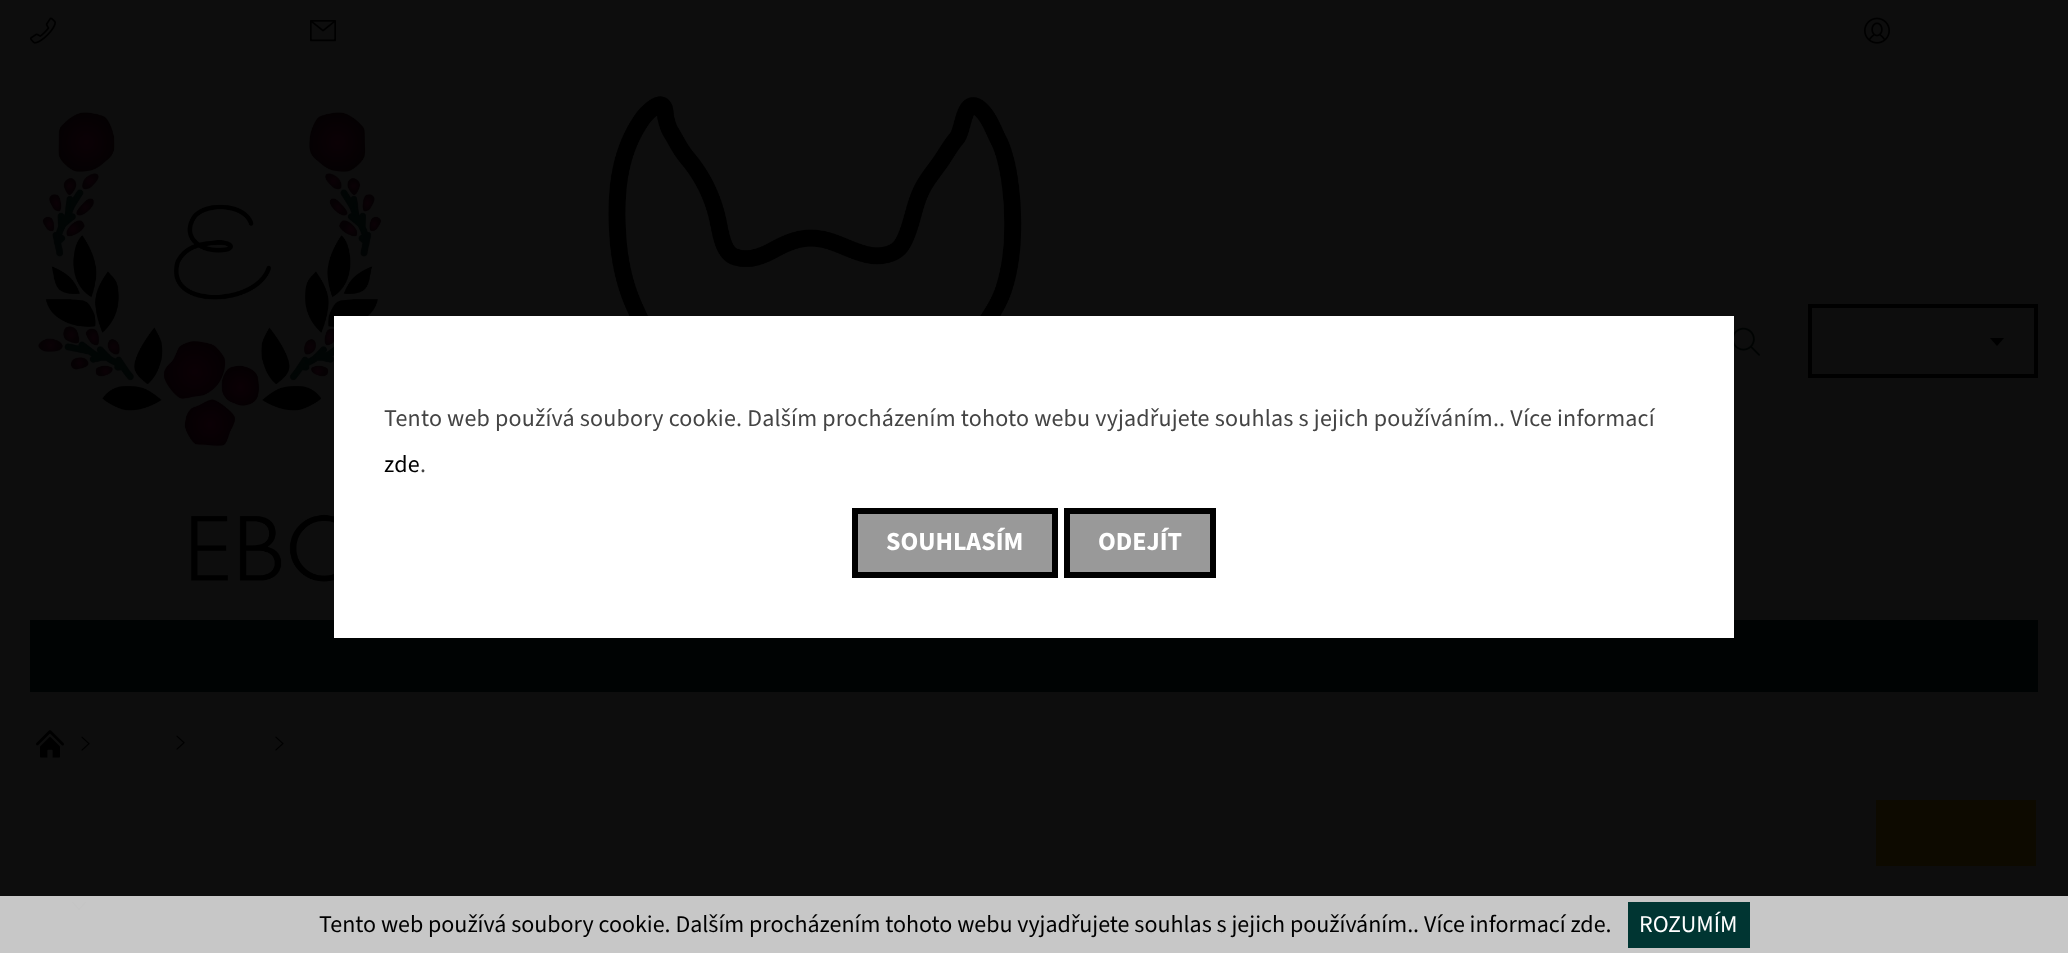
async function draw(canvas) {
  canvas.width = 2068;
  canvas.height = 953;
  const ctx = canvas.getContext('2d');
  ctx.miterLimit = 4;
  ctx.fontKerning = 'normal';
  function label(s, x, y, font, color) {
    ctx.font = font;
    ctx.fillStyle = color;
    ctx.fillText(s, x, y);
  }
  function rect(x, y, w, h, color) {
    ctx.fillStyle = color;
    ctx.fillRect(x, y, w, h);
  }
  async function image(src, x, y, w, h) {
    const img = new Image();
    img.src = src;
    await img.decode();
    ctx.drawImage(img, x, y, w, h);
  }
  let path;

  rect(0, 0, 2068, 953, '#0d0d0d');
  await image('assets/img1.png', 30, 17, 26, 27);
  await image('assets/img2.png', 310, 20, 26, 22);
  await image('assets/img3.png', 1864, 17, 26, 27);
  await image('assets/img4.png', 38, 96, 984, 486);
  await image('assets/img5.png', 1734, 327, 26, 29);
  ctx.strokeStyle = '#000';
  ctx.lineWidth = 4;
  ctx.strokeRect(1810, 306, 226, 70);
  ctx.fillStyle = '#000';
  path = new Path2D('M1997 338H2004L1997 346L1990 338Z');
  ctx.fill(path);
  rect(30, 620, 2008, 72, '#000303');
  await image('assets/img6.png', 36, 730, 28, 28);
  await image('assets/img7.png', 81, 736, 9, 15);
  await image('assets/img8.png', 176, 735, 9, 15);
  await image('assets/img9.png', 275, 736, 9, 15);
  rect(1876, 800, 160, 66, '#0d0a00');
  await image('assets/img10.png', 72, 901, 14, 9);
  rect(334, 316, 1400, 322, '#fff');
  ctx.letterSpacing = '0.2px';
  label('Tento web používá soubory cookie. Dalším procházením tohoto webu vyjadřujete souhlas s jejich používáním.. Více informací', 384, 426, '24px "Source Sans 3"', '#444');
  label('zde', 384, 472, '24px "Source Sans 3"', '#000');
  label('.', 420, 472, '24px "Source Sans 3"', '#444');
  ctx.fillStyle = '#999';
  ctx.beginPath();
  ctx.rect(856, 512, 198, 62);
  ctx.fill();
  ctx.stroke();
  ctx.lineWidth = 2;
  ctx.strokeRect(853, 509, 204, 68);
  ctx.letterSpacing = '0px';
  label('SOUHLASÍM', 886, 550, 'bold 26px "Source Sans 3"', '#fff');
  ctx.fillStyle = '#999';
  ctx.beginPath();
  ctx.rect(1068, 512, 144, 62);
  ctx.fill();
  ctx.lineWidth = 4;
  ctx.stroke();
  ctx.lineWidth = 2;
  ctx.strokeRect(1065, 509, 150, 68);
  label('ODEJÍT', 1098, 550, 'bold 26px "Source Sans 3"', '#fff');
  rect(0, 896, 2068, 57, '#f6f6f6cc');
  label('Tento web používá soubory cookie. Dalším procházením tohoto webu vyjadřujete souhlas s jejich používáním.. Více informací zde.', 319, 932, '24px "Source Sans 3"', '#000');
  rect(1628, 902, 122, 46, '#003532');
  label('ROZUMÍM', 1639, 932, '24px "Source Sans 3"', '#fff');
}

draw(document.querySelector('canvas'));
